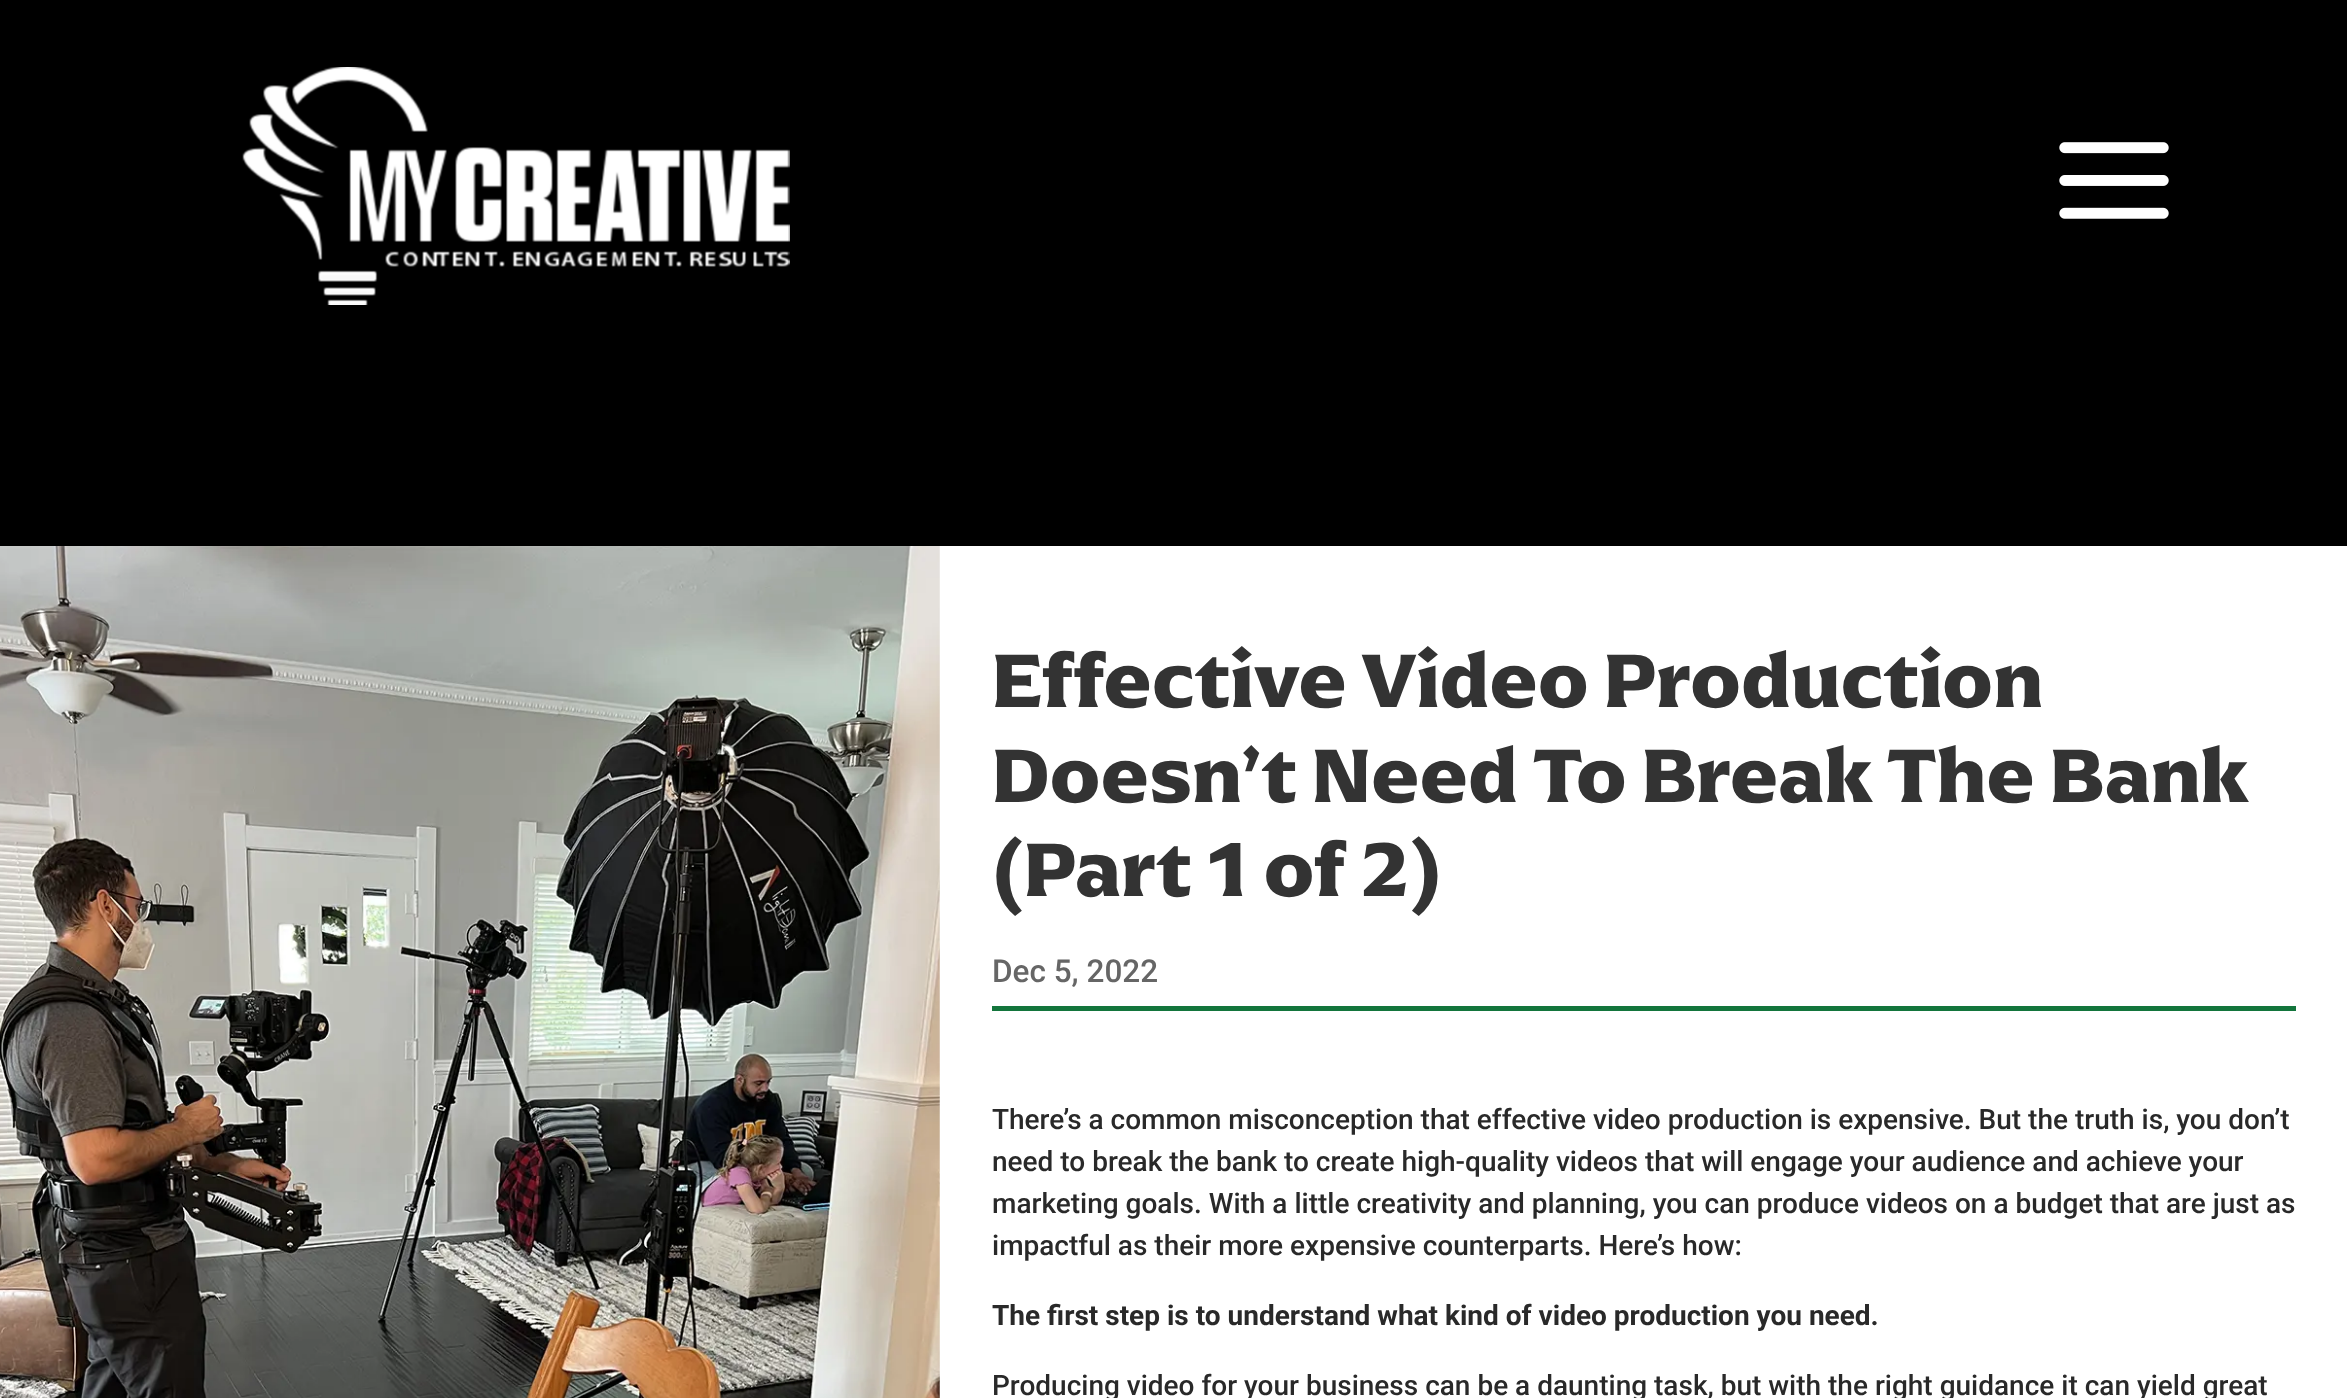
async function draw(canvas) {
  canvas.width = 2347;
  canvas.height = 1398;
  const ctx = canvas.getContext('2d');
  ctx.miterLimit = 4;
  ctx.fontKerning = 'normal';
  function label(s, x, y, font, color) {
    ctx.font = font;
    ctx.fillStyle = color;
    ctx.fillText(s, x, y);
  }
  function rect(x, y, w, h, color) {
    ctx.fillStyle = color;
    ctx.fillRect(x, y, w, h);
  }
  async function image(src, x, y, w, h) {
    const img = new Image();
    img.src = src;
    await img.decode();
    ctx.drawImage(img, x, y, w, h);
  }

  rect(0, 0, 2347, 1398, '#fff');
  rect(0, 0, 2347, 546, '#000');
  await image('assets/img1.png', 242, 67, 548, 238);
  await image('assets/img2.png', 2059, 142, 110, 77);
  await image('assets/img3.png', 0, 546, 940, 852);
  rect(992, 1006, 1304, 5, '#13753c');
  label('Effective Video Production', 992, 707, 'bold 78.75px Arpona', '#333');
  label('Doesn’t Need To Break The Bank', 992, 802, 'bold 78.75px Arpona', '#333');
  label('(Part 1 of 2)', 992, 896, 'bold 78.75px Arpona', '#333');
  label('Dec 5, 2022', 992, 982, '500 31.5px Roboto', '#666');
  label('There’s a common misconception that effective video production is expensive. But the truth is, you don’t', 992, 1129, '500 28px Roboto', '#292929');
  label('need to break the bank to create high-quality videos that will engage your audience and achieve your', 992, 1171, '500 28px Roboto', '#292929');
  label('marketing goals. With a little creativity and planning, you can produce videos on a budget that are just as', 992, 1213, '500 28px Roboto', '#292929');
  label('impactful as their more expensive counterparts. Here’s how:', 992, 1255, '500 28px Roboto', '#292929');
  label('The first step is to understand what kind of video production you need.', 992, 1325, 'bold 28px Roboto', '#292929');
  label('Producing video for your business can be a daunting task, but with the right guidance it can yield great', 992, 1395, '500 28px Roboto', '#292929');
}

draw(document.querySelector('canvas'));
